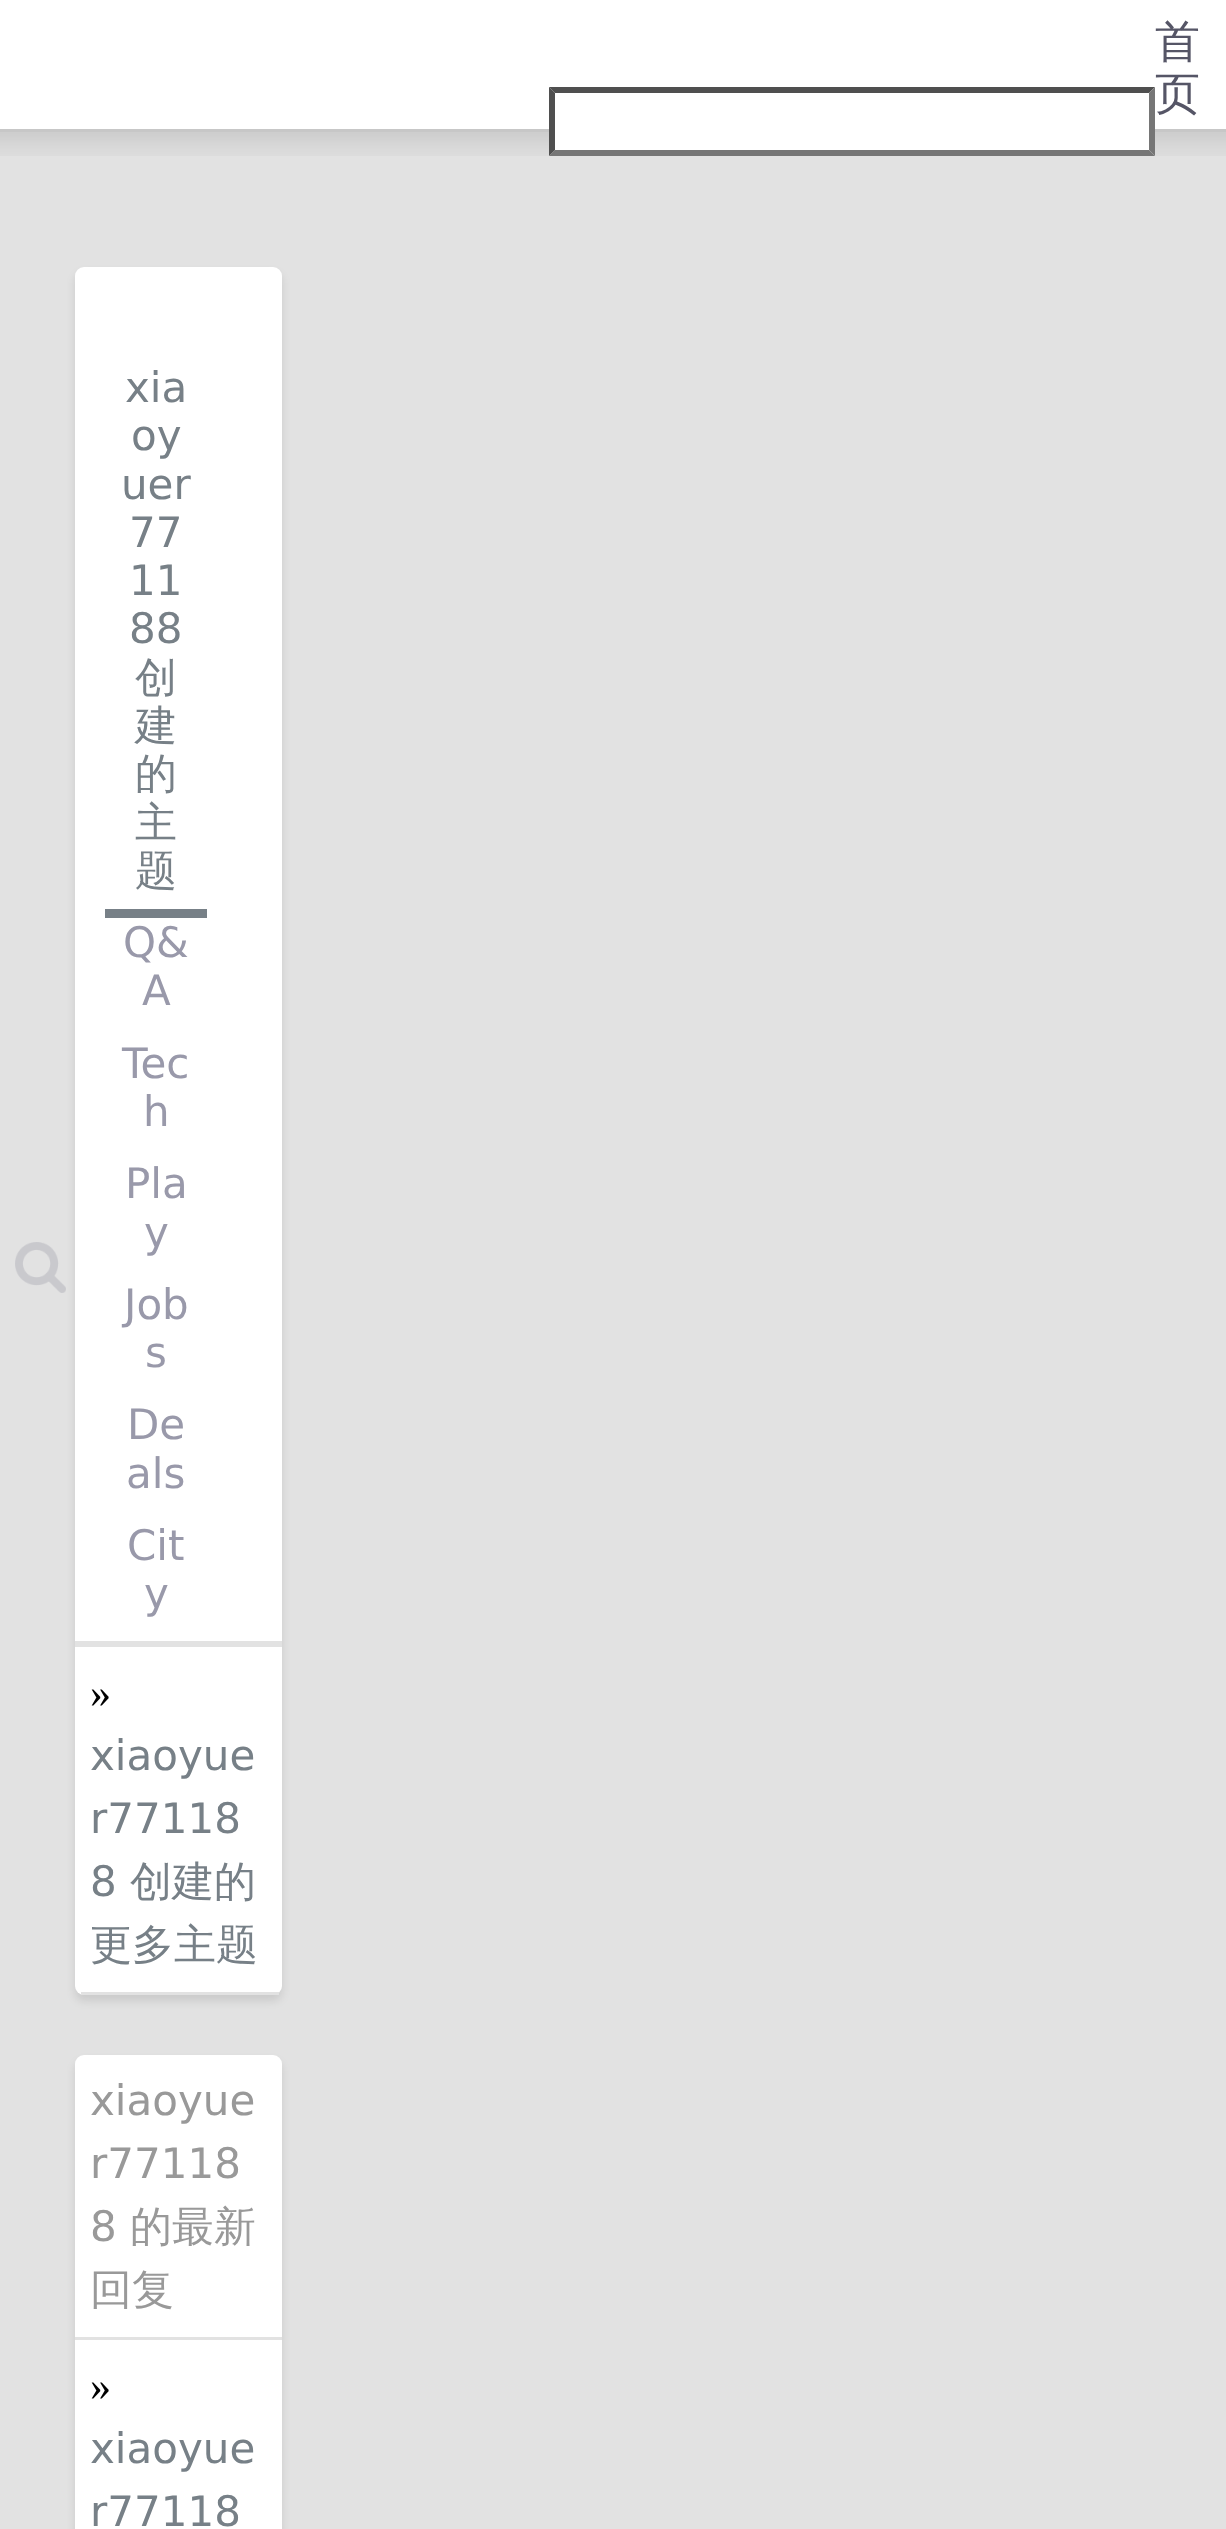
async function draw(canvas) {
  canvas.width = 1226;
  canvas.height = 2529;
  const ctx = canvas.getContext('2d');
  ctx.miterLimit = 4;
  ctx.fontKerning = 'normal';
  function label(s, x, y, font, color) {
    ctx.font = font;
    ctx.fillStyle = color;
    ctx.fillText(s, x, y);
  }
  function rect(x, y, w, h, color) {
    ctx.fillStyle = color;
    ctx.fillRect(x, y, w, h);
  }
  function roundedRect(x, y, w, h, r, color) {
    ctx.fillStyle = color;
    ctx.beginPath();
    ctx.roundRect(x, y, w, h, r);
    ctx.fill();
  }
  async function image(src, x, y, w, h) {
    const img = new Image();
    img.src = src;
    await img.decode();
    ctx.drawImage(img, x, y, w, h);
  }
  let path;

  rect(0, 0, 1226, 2529, '#fff');
  rect(0, 129, 1226, 3, '#c7c7c7');
  label('首', 1155, 57, '500 45px WenQuanYi Zen Hei', '#556');
  label('页', 1155, 109, '500 45px WenQuanYi Zen Hei', '#556');
  rect(0, 132, 1226, 2397, '#e2e2e2');
  await image('assets/img2.png', 0, 132, 1226, 24);
  rect(549, 129, 606, 27, '#fff');
  ctx.fillStyle = '#4f4f4f';
  path = new Path2D('M549 87H1155L1149 93H555Z');
  ctx.fill(path);
  ctx.fillStyle = '#767676';
  path = new Path2D('M1155 87V156L1149 150V93Z');
  ctx.fill(path);
  path = new Path2D('M1155 156H549L555 150H1149Z');
  ctx.fill(path);
  ctx.fillStyle = '#4f4f4f';
  path = new Path2D('M549 156V87L555 93V150Z');
  ctx.fill(path);
  ctx.fillStyle = '#0000001a';
  ctx.filter = 'blur(4.5px)';
  ctx.beginPath();
  ctx.roundRect(75, 273, 207, 1728, 9);
  ctx.fill();
  ctx.filter = 'none';
  await image('assets/img1.png', 15, 1242, 51, 51);
  roundedRect(75, 267, 207, 1728, 9, '#fff');
  rect(81, 1992, 198, 3, '#e2e2e2');
  rect(75, 1641, 207, 6, '#e2e2e2');
  rect(105, 909, 102, 9, '#778087');
  label('xia', 125, 402, '42px DejaVu Sans', '#778087');
  label('oy', 131, 450, '42px DejaVu Sans', '#778087');
  label('uer', 121, 499, '42px DejaVu Sans', '#778087');
  label('77', 129, 547, '42px DejaVu Sans', '#778087');
  label('11', 129, 595, '42px DejaVu Sans', '#778087');
  label('88', 129, 643, '42px DejaVu Sans', '#778087');
  label('创', 135, 692, '500 42px WenQuanYi Zen Hei', '#778087');
  label('建', 135, 740, '500 42px WenQuanYi Zen Hei', '#778087');
  label('的', 135, 788, '500 42px WenQuanYi Zen Hei', '#778087');
  label('主', 135, 837, '500 42px WenQuanYi Zen Hei', '#778087');
  label('题', 135, 885, '500 42px WenQuanYi Zen Hei', '#778087');
  label('Q&', 123, 957, '42px DejaVu Sans', '#99a');
  label('A', 142, 1005, '42px DejaVu Sans', '#99a');
  label('Tec', 122, 1078, '42px DejaVu Sans', '#99a');
  label('h', 143, 1126, '42px DejaVu Sans', '#99a');
  label('Pla', 125, 1198, '42px DejaVu Sans', '#99a');
  label('y', 144, 1247, '42px DejaVu Sans', '#99a');
  label('Job', 124, 1319, '42px DejaVu Sans', '#99a');
  label('s', 145, 1367, '42px DejaVu Sans', '#99a');
  label('De', 127, 1439, '42px DejaVu Sans', '#99a');
  label('als', 126, 1488, '42px DejaVu Sans', '#99a');
  label('Cit', 127, 1560, '42px DejaVu Sans', '#99a');
  label('y', 144, 1608, '42px DejaVu Sans', '#99a');
  label('»', 90, 1707, '42px Liberation Serif', '#000');
  label('xiaoyue', 90, 1770, '42px DejaVu Sans', '#778087');
  label('r77118', 90, 1833, '42px DejaVu Sans', '#778087');
  label('8', 90, 1896, '42px DejaVu Sans', '#778087');
  label('创建的', 130, 1896, '500 42px WenQuanYi Zen Hei', '#778087');
  label('更多主题', 90, 1959, '500 42px WenQuanYi Zen Hei', '#778087');
  ctx.fillStyle = '#0000001a';
  ctx.filter = 'blur(4.5px)';
  ctx.beginPath();
  ctx.roundRect(75, 2061, 207, 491, 9);
  ctx.fill();
  ctx.filter = 'none';
  roundedRect(75, 2055, 207, 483, 9, '#fff');
  rect(75, 2337, 207, 3, '#e2e2e2');
  label('xiaoyue', 90, 2115, '42px DejaVu Sans', '#999');
  label('r77118', 90, 2178, '42px DejaVu Sans', '#999');
  label('8', 90, 2241, '42px DejaVu Sans', '#999');
  label('的最新', 130, 2241, '500 42px WenQuanYi Zen Hei', '#999');
  label('回复', 90, 2304, '500 42px WenQuanYi Zen Hei', '#999');
  label('»', 90, 2400, '42px Liberation Serif', '#000');
  label('xiaoyue', 90, 2463, '42px DejaVu Sans', '#778087');
  label('r77118', 90, 2526, '42px DejaVu Sans', '#778087');
}

draw(document.querySelector('canvas'));
